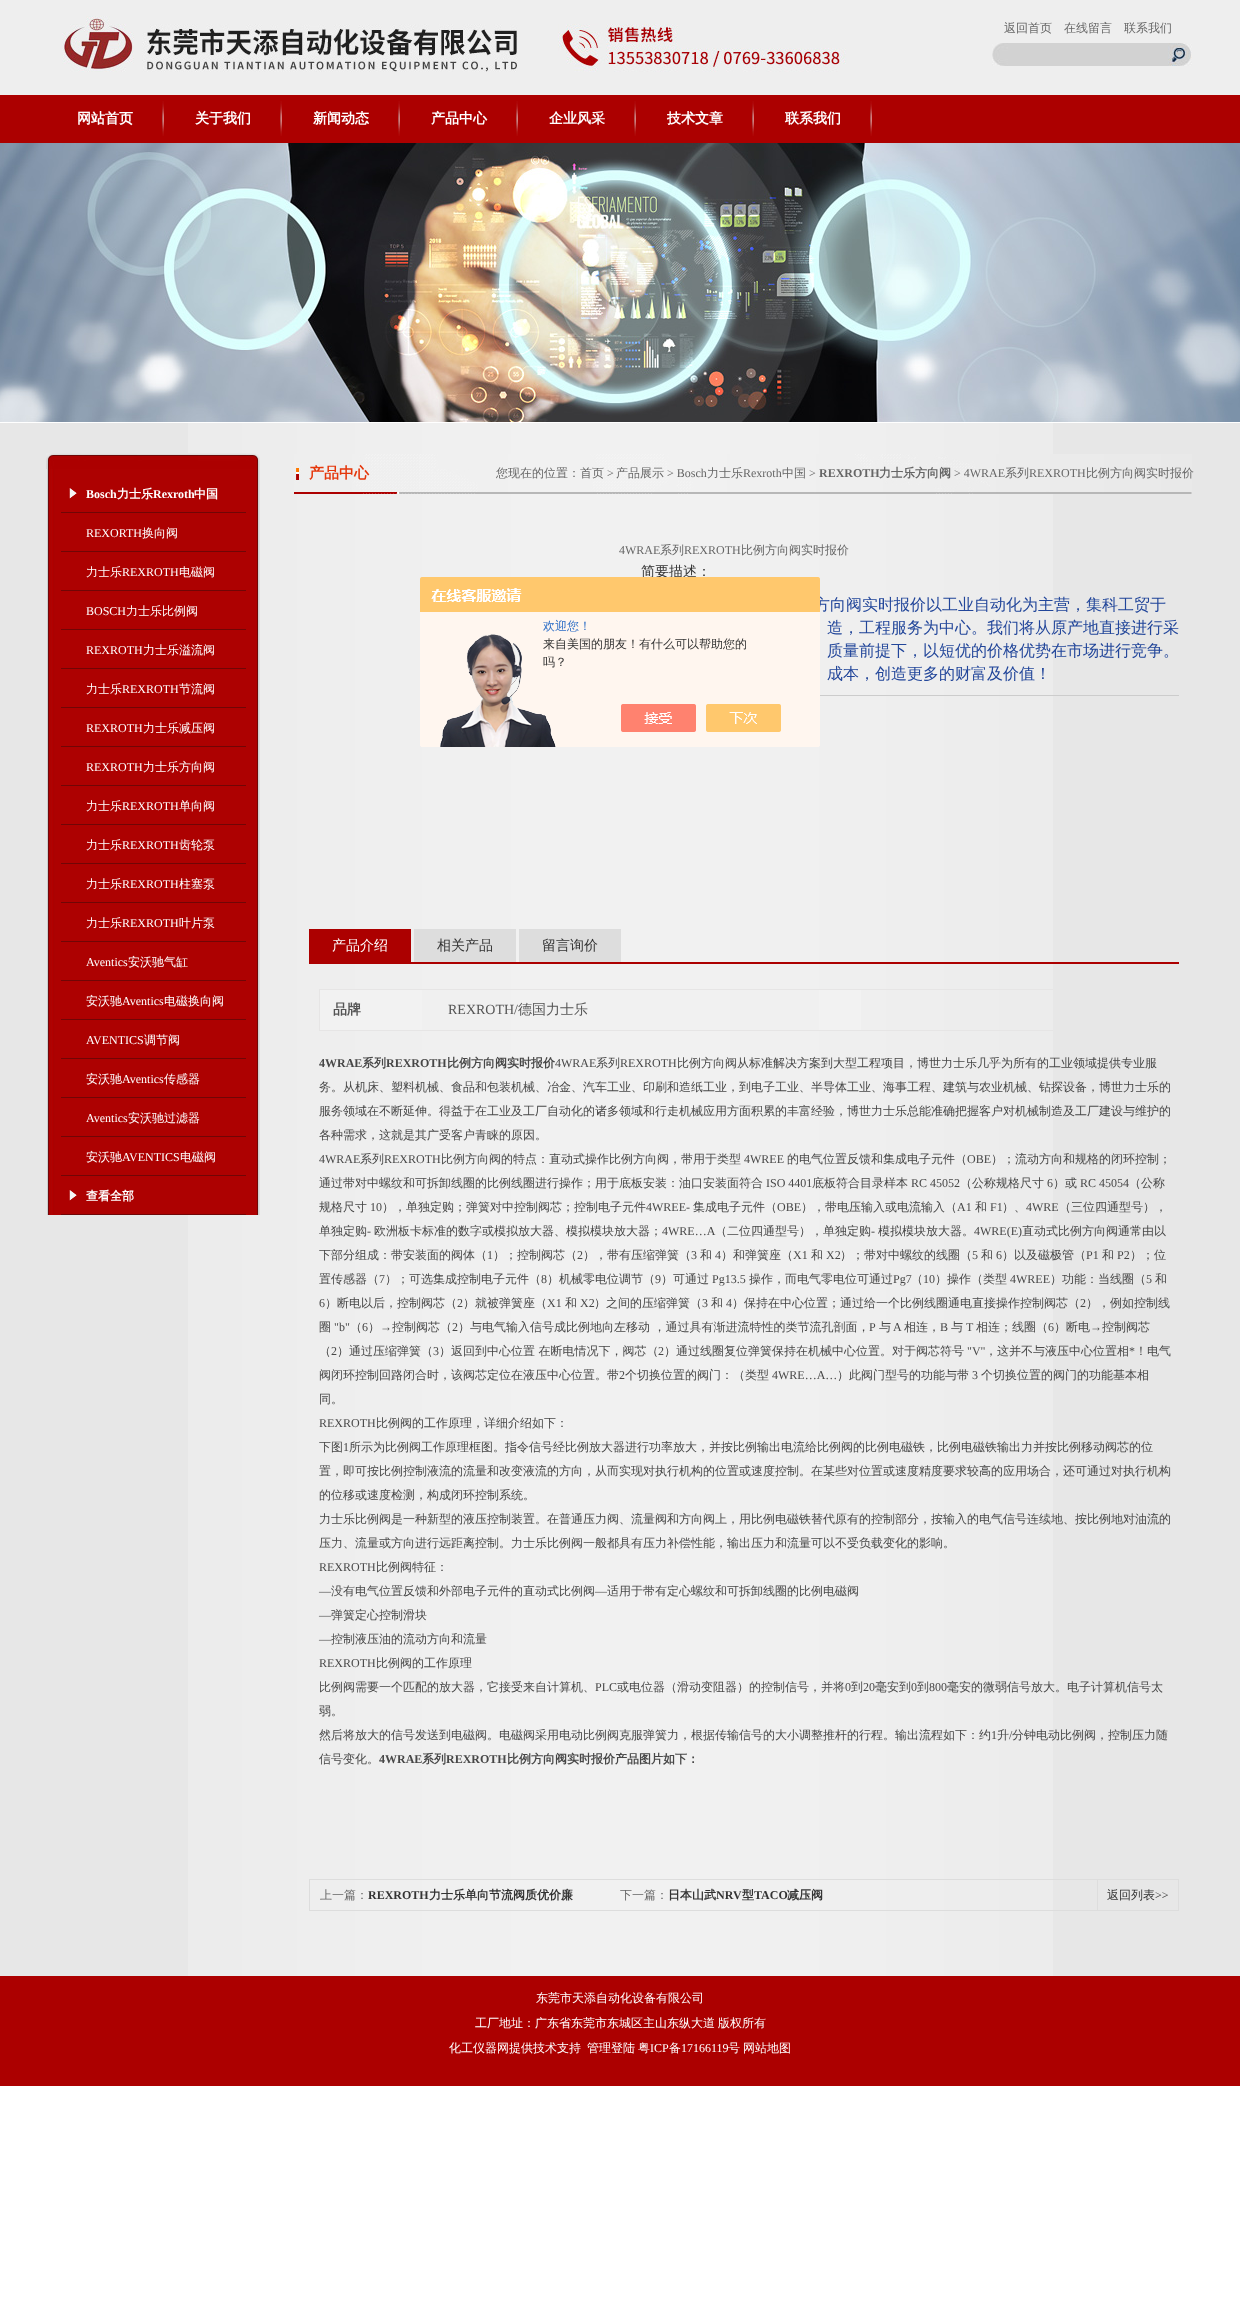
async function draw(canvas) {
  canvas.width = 1240;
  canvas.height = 2315;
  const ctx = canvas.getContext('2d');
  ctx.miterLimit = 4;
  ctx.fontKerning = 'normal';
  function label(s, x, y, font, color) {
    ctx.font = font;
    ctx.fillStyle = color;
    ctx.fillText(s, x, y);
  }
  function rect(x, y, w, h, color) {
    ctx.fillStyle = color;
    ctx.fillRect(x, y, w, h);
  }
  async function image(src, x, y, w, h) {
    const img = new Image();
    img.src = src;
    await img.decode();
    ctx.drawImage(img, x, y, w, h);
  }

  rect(0, 0, 1240, 2315, '#fff');
  rect(0, 0, 1240, 95, '#eee');
  await image('assets/img1.png', 62, 16, 784, 56);
  label('返回首页', 1004, 32, '500 12px WenQuanYi Zen Hei', '#666');
  label('在线留言', 1064, 32, '500 12px WenQuanYi Zen Hei', '#666');
  label('联系我们', 1124, 32, '500 12px WenQuanYi Zen Hei', '#666');
  await image('assets/img2.png', 992, 43, 200, 23);
  rect(0, 95, 1240, 48, '#ac0000');
  await image('assets/img3.png', 162, 101, 2, 35);
  label('网站首页', 77, 123, 'bold 14px WenQuanYi Zen Hei', '#fff');
  await image('assets/img3.png', 280, 101, 2, 35);
  label('关于我们', 195, 123, 'bold 14px WenQuanYi Zen Hei', '#fff');
  await image('assets/img3.png', 398, 101, 2, 35);
  label('新闻动态', 313, 123, 'bold 14px WenQuanYi Zen Hei', '#fff');
  await image('assets/img3.png', 516, 101, 2, 35);
  label('产品中心', 431, 123, 'bold 14px WenQuanYi Zen Hei', '#fff');
  await image('assets/img3.png', 634, 101, 2, 35);
  label('企业风采', 549, 123, 'bold 14px WenQuanYi Zen Hei', '#fff');
  await image('assets/img3.png', 752, 101, 2, 35);
  label('技术文章', 667, 123, 'bold 14px WenQuanYi Zen Hei', '#fff');
  await image('assets/img3.png', 870, 101, 2, 35);
  label('联系我们', 785, 123, 'bold 14px WenQuanYi Zen Hei', '#fff');
  await image('assets/img4.png', 0, 143, 1240, 279);
  rect(0, 423, 1240, 1553, '#e7e7e7');
  await image('assets/img5.png', 188, 423, 865, 1553);
  await image('assets/img6.png', 46, 453, 214, 16);
  await image('assets/img7.png', 47, 469, 213, 746);
  await image('assets/img8.png', 69, 488, 8, 11);
  rect(61, 512, 185, 1, '#700606');
  label('Bosch', 86, 498, 'bold 12px Liberation Serif', '#fff');
  label('力士乐', 117, 498, 'bold 12px WenQuanYi Zen Hei', '#fff');
  label('Rexroth', 153, 498, 'bold 12px Liberation Serif', '#fff');
  label('中国', 194, 498, 'bold 12px WenQuanYi Zen Hei', '#fff');
  rect(61, 551, 185, 1, '#700606');
  label('REXORTH', 86, 537, '12px Liberation Serif', '#fff');
  label('换向阀', 142, 537, '500 12px WenQuanYi Zen Hei', '#fff');
  rect(61, 590, 185, 1, '#700606');
  label('力士乐', 86, 576, '500 12px WenQuanYi Zen Hei', '#fff');
  label('REXROTH', 122, 576, '12px Liberation Serif', '#fff');
  label('电磁阀', 179, 576, '500 12px WenQuanYi Zen Hei', '#fff');
  rect(61, 629, 185, 1, '#700606');
  label('BOSCH', 86, 615, '12px Liberation Serif', '#fff');
  label('力士乐比例阀', 126, 615, '500 12px WenQuanYi Zen Hei', '#fff');
  rect(61, 668, 185, 1, '#700606');
  label('REXROTH', 86, 654, '12px Liberation Serif', '#fff');
  label('力士乐溢流阀', 143, 654, '500 12px WenQuanYi Zen Hei', '#fff');
  rect(61, 707, 185, 1, '#700606');
  label('力士乐', 86, 693, '500 12px WenQuanYi Zen Hei', '#fff');
  label('REXROTH', 122, 693, '12px Liberation Serif', '#fff');
  label('节流阀', 179, 693, '500 12px WenQuanYi Zen Hei', '#fff');
  rect(61, 746, 185, 1, '#700606');
  label('REXROTH', 86, 732, '12px Liberation Serif', '#fff');
  label('力士乐减压阀', 143, 732, '500 12px WenQuanYi Zen Hei', '#fff');
  rect(61, 785, 185, 1, '#700606');
  label('REXROTH', 86, 771, '12px Liberation Serif', '#fff');
  label('力士乐方向阀', 143, 771, '500 12px WenQuanYi Zen Hei', '#fff');
  rect(61, 824, 185, 1, '#700606');
  label('力士乐', 86, 810, '500 12px WenQuanYi Zen Hei', '#fff');
  label('REXROTH', 122, 810, '12px Liberation Serif', '#fff');
  label('单向阀', 179, 810, '500 12px WenQuanYi Zen Hei', '#fff');
  rect(61, 863, 185, 1, '#700606');
  label('力士乐', 86, 849, '500 12px WenQuanYi Zen Hei', '#fff');
  label('REXROTH', 122, 849, '12px Liberation Serif', '#fff');
  label('齿轮泵', 179, 849, '500 12px WenQuanYi Zen Hei', '#fff');
  rect(61, 902, 185, 1, '#700606');
  label('力士乐', 86, 888, '500 12px WenQuanYi Zen Hei', '#fff');
  label('REXROTH', 122, 888, '12px Liberation Serif', '#fff');
  label('柱塞泵', 179, 888, '500 12px WenQuanYi Zen Hei', '#fff');
  rect(61, 941, 185, 1, '#700606');
  label('力士乐', 86, 927, '500 12px WenQuanYi Zen Hei', '#fff');
  label('REXROTH', 122, 927, '12px Liberation Serif', '#fff');
  label('叶片泵', 179, 927, '500 12px WenQuanYi Zen Hei', '#fff');
  rect(61, 980, 185, 1, '#700606');
  label('Aventics', 86, 966, '12px Liberation Serif', '#fff');
  label('安沃驰气缸', 128, 966, '500 12px WenQuanYi Zen Hei', '#fff');
  rect(61, 1019, 185, 1, '#700606');
  label('安沃驰', 86, 1005, '500 12px WenQuanYi Zen Hei', '#fff');
  label('Aventics', 122, 1005, '12px Liberation Serif', '#fff');
  label('电磁换向阀', 164, 1005, '500 12px WenQuanYi Zen Hei', '#fff');
  rect(61, 1058, 185, 1, '#700606');
  label('AVENTICS', 86, 1044, '12px Liberation Serif', '#fff');
  label('调节阀', 144, 1044, '500 12px WenQuanYi Zen Hei', '#fff');
  rect(61, 1097, 185, 1, '#700606');
  label('安沃驰', 86, 1083, '500 12px WenQuanYi Zen Hei', '#fff');
  label('Aventics', 122, 1083, '12px Liberation Serif', '#fff');
  label('传感器', 164, 1083, '500 12px WenQuanYi Zen Hei', '#fff');
  rect(61, 1136, 185, 1, '#700606');
  label('Aventics', 86, 1122, '12px Liberation Serif', '#fff');
  label('安沃驰过滤器', 128, 1122, '500 12px WenQuanYi Zen Hei', '#fff');
  rect(61, 1175, 185, 1, '#700606');
  label('安沃驰', 86, 1161, '500 12px WenQuanYi Zen Hei', '#fff');
  label('AVENTICS', 122, 1161, '12px Liberation Serif', '#fff');
  label('电磁阀', 180, 1161, '500 12px WenQuanYi Zen Hei', '#fff');
  await image('assets/img8.png', 69, 1190, 8, 11);
  rect(61, 1214, 185, 1, '#700606');
  label('查看全部', 86, 1200, 'bold 12px WenQuanYi Zen Hei', '#fff');
  await image('assets/img9.png', 294, 454, 898, 40);
  label('产品中心', 309, 478, 'bold 15px WenQuanYi Zen Hei', '#e5370b');
  label('您现在的位置：首页', 496, 477, '500 12px WenQuanYi Zen Hei', '#666');
  label('>', 607, 477, '12px Liberation Serif', '#666');
  label('产品展示', 616, 477, '500 12px WenQuanYi Zen Hei', '#666');
  label('> Bosch', 667, 477, '12px Liberation Serif', '#666');
  label('力士乐', 707, 477, '500 12px WenQuanYi Zen Hei', '#666');
  label('Rexroth', 743, 477, '12px Liberation Serif', '#666');
  label('中国', 782, 477, '500 12px WenQuanYi Zen Hei', '#666');
  label('>', 809, 477, '12px Liberation Serif', '#666');
  label('REXROTH', 819, 477, 'bold 12px Liberation Serif', '#666');
  label('力士乐方向阀', 879, 477, 'bold 12px WenQuanYi Zen Hei', '#666');
  label('> 4WRAE', 954, 477, '12px Liberation Serif', '#666');
  label('系列', 1005, 477, '500 12px WenQuanYi Zen Hei', '#666');
  label('REXROTH', 1029, 477, '12px Liberation Serif', '#666');
  label('比例方向阀实时报价', 1086, 477, '500 12px WenQuanYi Zen Hei', '#666');
  label('4WRAE', 619, 554, '12px Liberation Serif', '#666');
  label('系列', 660, 554, '500 12px WenQuanYi Zen Hei', '#666');
  label('REXROTH', 684, 554, '12px Liberation Serif', '#666');
  label('比例方向阀实时报价', 741, 554, '500 12px WenQuanYi Zen Hei', '#666');
  label('简要描述：', 641, 576, '500 14px WenQuanYi Zen Hei', '#333');
  rect(820, 695, 359, 1, '#ccc');
  label('方向阀实时报价以工业自动化为主营，集科工贸于', 814, 610, '500 16px WenQuanYi Zen Hei', '#22469a');
  label('造，工程服务为中心。我们将从原产地直接进行采', 827, 633, '500 16px WenQuanYi Zen Hei', '#22469a');
  label('质量前提下，以短优的价格优势在市场进行竞争。', 827, 656, '500 16px WenQuanYi Zen Hei', '#22469a');
  label('成本，创造更多的财富及价值！', 827, 679, '500 16px WenQuanYi Zen Hei', '#22469a');
  rect(309, 962, 870, 2, '#ac0000');
  rect(309, 929, 102, 33, '#ac0000');
  label('产品介绍', 332, 950, '500 14px WenQuanYi Zen Hei', '#fff');
  rect(414, 929, 102, 33, '#ddd');
  label('相关产品', 437, 950, '500 14px WenQuanYi Zen Hei', '#333');
  rect(519, 929, 102, 33, '#ddd');
  label('留言询价', 542, 950, '500 14px WenQuanYi Zen Hei', '#333');
  rect(319, 989, 734, 1, '#e6e5e5');
  rect(319, 989, 1, 42, '#e6e5e5');
  rect(320, 990, 102, 40, '#f2f2f2');
  label('品牌', 333, 1014, 'bold 14px WenQuanYi Zen Hei', '#555');
  label('REXROTH/', 448, 1014, '14px Liberation Serif', '#555');
  label('德国力士乐', 518, 1014, '500 14px WenQuanYi Zen Hei', '#555');
  rect(819, 990, 42, 40, '#f2f2f2');
  rect(319, 1030, 734, 1, '#e6e5e5');
  label('4WRAE', 319, 1067, 'bold 12px Liberation Serif', '#474747');
  label('系列', 362, 1067, 'bold 12px WenQuanYi Zen Hei', '#474747');
  label('REXROTH', 386, 1067, 'bold 12px Liberation Serif', '#474747');
  label('比例方向阀实时报价', 447, 1067, 'bold 12px WenQuanYi Zen Hei', '#474747');
  label('4WRAE', 555, 1067, '12px Liberation Serif', '#474747');
  label('系列', 596, 1067, '500 12px WenQuanYi Zen Hei', '#474747');
  label('REXROTH', 620, 1067, '12px Liberation Serif', '#474747');
  label('比例方向阀从标准解决方案到大型工程项目，博世力士乐几乎为所有的工业领域提供专业服', 677, 1067, '500 12px WenQuanYi Zen Hei', '#474747');
  label('务。从机床、塑料机械、食品和包装机械、冶金、汽车工业、印刷和造纸工业，到电子工业、半导体工业、海事工程、建筑与农业机械、钻探设备，博世力士乐的', 319, 1091, '500 12px WenQuanYi Zen Hei', '#474747');
  label('服务领域在不断延伸。得益于在工业及工厂自动化的诸多领域和行走机械应用方面积累的丰富经验，博世力士乐总能准确把握客户对机械制造及工厂建设与维护的', 319, 1115, '500 12px WenQuanYi Zen Hei', '#474747');
  label('各种需求，这就是其广受客户青睐的原因。', 319, 1139, '500 12px WenQuanYi Zen Hei', '#474747');
  label('4WRAE', 319, 1163, '12px Liberation Serif', '#474747');
  label('系列', 360, 1163, '500 12px WenQuanYi Zen Hei', '#474747');
  label('REXROTH', 384, 1163, '12px Liberation Serif', '#474747');
  label('比例方向阀的特点：直动式操作比例方向阀，带用于类型', 441, 1163, '500 12px WenQuanYi Zen Hei', '#474747');
  label('4WREE', 744, 1163, '12px Liberation Serif', '#474747');
  label('的电气位置反馈和集成电子元件（', 787, 1163, '500 12px WenQuanYi Zen Hei', '#474747');
  label('OBE', 967, 1163, '12px Liberation Serif', '#474747');
  label('）；流动方向和规格的闭环控制；', 991, 1163, '500 12px WenQuanYi Zen Hei', '#474747');
  label('通过带对中螺纹和可拆卸线圈的比例线圈进行操作；用于底板安装：油口安装面符合', 319, 1187, '500 12px WenQuanYi Zen Hei', '#474747');
  label('ISO 4401', 766, 1187, '12px Liberation Serif', '#474747');
  label('底板符合目录样本', 812, 1187, '500 12px WenQuanYi Zen Hei', '#474747');
  label('RC 45052', 911, 1187, '12px Liberation Serif', '#474747');
  label('（公称规格尺寸', 960, 1187, '500 12px WenQuanYi Zen Hei', '#474747');
  label('6', 1047, 1187, '12px Liberation Serif', '#474747');
  label('）或', 1053, 1187, '500 12px WenQuanYi Zen Hei', '#474747');
  label('RC 45054', 1080, 1187, '12px Liberation Serif', '#474747');
  label('（公称', 1129, 1187, '500 12px WenQuanYi Zen Hei', '#474747');
  label('规格尺寸', 319, 1211, '500 12px WenQuanYi Zen Hei', '#474747');
  label('10', 370, 1211, '12px Liberation Serif', '#474747');
  label('），单独定购；弹簧对中控制阀芯；控制电子元件', 382, 1211, '500 12px WenQuanYi Zen Hei', '#474747');
  label('4WREE-', 646, 1211, '12px Liberation Serif', '#474747');
  label('集成电子元件（', 693, 1211, '500 12px WenQuanYi Zen Hei', '#474747');
  label('OBE', 777, 1211, '12px Liberation Serif', '#474747');
  label('），带电压输入或电流输入（', 801, 1211, '500 12px WenQuanYi Zen Hei', '#474747');
  label('A1', 957, 1211, '12px Liberation Serif', '#474747');
  label('和', 975, 1211, '500 12px WenQuanYi Zen Hei', '#474747');
  label('F1', 990, 1211, '12px Liberation Serif', '#474747');
  label('）、', 1002, 1211, '500 12px WenQuanYi Zen Hei', '#474747');
  label('4WRE', 1026, 1211, '12px Liberation Serif', '#474747');
  label('（三位四通型号），', 1059, 1211, '500 12px WenQuanYi Zen Hei', '#474747');
  label('单独定购', 319, 1235, '500 12px WenQuanYi Zen Hei', '#474747');
  label('-', 367, 1235, '12px Liberation Serif', '#474747');
  label('欧洲板卡标准的数字或模拟放大器、模拟模块放大器；', 374, 1235, '500 12px WenQuanYi Zen Hei', '#474747');
  label('4WRE…A', 662, 1235, '12px Liberation Serif', '#474747');
  label('（二位四通型号），单独定购', 715, 1235, '500 12px WenQuanYi Zen Hei', '#474747');
  label('-', 871, 1235, '12px Liberation Serif', '#474747');
  label('模拟模块放大器。', 878, 1235, '500 12px WenQuanYi Zen Hei', '#474747');
  label('4WRE(E)', 974, 1235, '12px Liberation Serif', '#474747');
  label('直动式比例方向阀通常由以', 1022, 1235, '500 12px WenQuanYi Zen Hei', '#474747');
  label('下部分组成：带安装面的阀体（', 319, 1259, '500 12px WenQuanYi Zen Hei', '#474747');
  label('1', 487, 1259, '12px Liberation Serif', '#474747');
  label('）；控制阀芯（', 493, 1259, '500 12px WenQuanYi Zen Hei', '#474747');
  label('2', 577, 1259, '12px Liberation Serif', '#474747');
  label('），带有压缩弹簧（', 583, 1259, '500 12px WenQuanYi Zen Hei', '#474747');
  label('3', 691, 1259, '12px Liberation Serif', '#474747');
  label('和', 700, 1259, '500 12px WenQuanYi Zen Hei', '#474747');
  label('4', 715, 1259, '12px Liberation Serif', '#474747');
  label('）和弹簧座（', 721, 1259, '500 12px WenQuanYi Zen Hei', '#474747');
  label('X1', 793, 1259, '12px Liberation Serif', '#474747');
  label('和', 811, 1259, '500 12px WenQuanYi Zen Hei', '#474747');
  label('X2', 826, 1259, '12px Liberation Serif', '#474747');
  label('）；带对中螺纹的线圈（', 840, 1259, '500 12px WenQuanYi Zen Hei', '#474747');
  label('5', 972, 1259, '12px Liberation Serif', '#474747');
  label('和', 981, 1259, '500 12px WenQuanYi Zen Hei', '#474747');
  label('6', 996, 1259, '12px Liberation Serif', '#474747');
  label('）以及磁极管（', 1002, 1259, '500 12px WenQuanYi Zen Hei', '#474747');
  label('P1', 1086, 1259, '12px Liberation Serif', '#474747');
  label('和', 1102, 1259, '500 12px WenQuanYi Zen Hei', '#474747');
  label('P2', 1117, 1259, '12px Liberation Serif', '#474747');
  label('）；位', 1130, 1259, '500 12px WenQuanYi Zen Hei', '#474747');
  label('置传感器（', 319, 1283, '500 12px WenQuanYi Zen Hei', '#474747');
  label('7', 379, 1283, '12px Liberation Serif', '#474747');
  label('）；可选集成控制电子元件（', 385, 1283, '500 12px WenQuanYi Zen Hei', '#474747');
  label('8', 541, 1283, '12px Liberation Serif', '#474747');
  label('）机械零电位调节（', 547, 1283, '500 12px WenQuanYi Zen Hei', '#474747');
  label('9', 655, 1283, '12px Liberation Serif', '#474747');
  label('）可通过', 661, 1283, '500 12px WenQuanYi Zen Hei', '#474747');
  label('Pg13.5', 712, 1283, '12px Liberation Serif', '#474747');
  label('操作，而电气零电位可通过', 749, 1283, '500 12px WenQuanYi Zen Hei', '#474747');
  label('Pg7', 893, 1283, '12px Liberation Serif', '#474747');
  label('（', 911, 1283, '500 12px WenQuanYi Zen Hei', '#474747');
  label('10', 923, 1283, '12px Liberation Serif', '#474747');
  label('）操作（类型', 935, 1283, '500 12px WenQuanYi Zen Hei', '#474747');
  label('4WREE', 1010, 1283, '12px Liberation Serif', '#474747');
  label('）功能：当线圈（', 1050, 1283, '500 12px WenQuanYi Zen Hei', '#474747');
  label('5', 1146, 1283, '12px Liberation Serif', '#474747');
  label('和', 1155, 1283, '500 12px WenQuanYi Zen Hei', '#474747');
  label('6', 319, 1307, '12px Liberation Serif', '#474747');
  label('）断电以后，控制阀芯（', 325, 1307, '500 12px WenQuanYi Zen Hei', '#474747');
  label('2', 457, 1307, '12px Liberation Serif', '#474747');
  label('）就被弹簧座（', 463, 1307, '500 12px WenQuanYi Zen Hei', '#474747');
  label('X1', 547, 1307, '12px Liberation Serif', '#474747');
  label('和', 565, 1307, '500 12px WenQuanYi Zen Hei', '#474747');
  label('X2', 580, 1307, '12px Liberation Serif', '#474747');
  label('）之间的压缩弹簧（', 594, 1307, '500 12px WenQuanYi Zen Hei', '#474747');
  label('3', 702, 1307, '12px Liberation Serif', '#474747');
  label('和', 711, 1307, '500 12px WenQuanYi Zen Hei', '#474747');
  label('4', 726, 1307, '12px Liberation Serif', '#474747');
  label('）保持在中心位置；通过给一个比例线圈通电直接操作控制阀芯（', 732, 1307, '500 12px WenQuanYi Zen Hei', '#474747');
  label('2', 1080, 1307, '12px Liberation Serif', '#474747');
  label('），例如控制线', 1086, 1307, '500 12px WenQuanYi Zen Hei', '#474747');
  label('圈', 319, 1331, '500 12px WenQuanYi Zen Hei', '#474747');
  label('"b"', 334, 1331, '12px Liberation Serif', '#474747');
  label('（', 350, 1331, '500 12px WenQuanYi Zen Hei', '#474747');
  label('6', 362, 1331, '12px Liberation Serif', '#474747');
  label('）', 368, 1331, '500 12px WenQuanYi Zen Hei', '#474747');
  label('→', 380, 1331, '12px Liberation Serif', '#474747');
  label('控制阀芯（', 392, 1331, '500 12px WenQuanYi Zen Hei', '#474747');
  label('2', 452, 1331, '12px Liberation Serif', '#474747');
  label('）与电气输入信号成比例地向左移动 ，通过具有渐进流特性的类节流孔剖面，', 458, 1331, '500 12px WenQuanYi Zen Hei', '#474747');
  label('P', 869, 1331, '12px Liberation Serif', '#474747');
  label('与', 879, 1331, '500 12px WenQuanYi Zen Hei', '#474747');
  label('A', 893, 1331, '12px Liberation Serif', '#474747');
  label('相连，', 904, 1331, '500 12px WenQuanYi Zen Hei', '#474747');
  label('B', 940, 1331, '12px Liberation Serif', '#474747');
  label('与', 951, 1331, '500 12px WenQuanYi Zen Hei', '#474747');
  label('T', 966, 1331, '12px Liberation Serif', '#474747');
  label('相连；线圈（', 976, 1331, '500 12px WenQuanYi Zen Hei', '#474747');
  label('6', 1048, 1331, '12px Liberation Serif', '#474747');
  label('）断电', 1054, 1331, '500 12px WenQuanYi Zen Hei', '#474747');
  label('→', 1090, 1331, '12px Liberation Serif', '#474747');
  label('控制阀芯', 1102, 1331, '500 12px WenQuanYi Zen Hei', '#474747');
  label('（', 319, 1355, '500 12px WenQuanYi Zen Hei', '#474747');
  label('2', 331, 1355, '12px Liberation Serif', '#474747');
  label('）通过压缩弹簧（', 337, 1355, '500 12px WenQuanYi Zen Hei', '#474747');
  label('3', 433, 1355, '12px Liberation Serif', '#474747');
  label('）返回到中心位置 在断电情况下，阀芯（', 439, 1355, '500 12px WenQuanYi Zen Hei', '#474747');
  label('2', 658, 1355, '12px Liberation Serif', '#474747');
  label('）通过线圈复位弹簧保持在机械中心位置。对于阀芯符号', 664, 1355, '500 12px WenQuanYi Zen Hei', '#474747');
  label('"V"', 967, 1355, '12px Liberation Serif', '#474747');
  label('，这并不与液压中心位置相', 985, 1355, '500 12px WenQuanYi Zen Hei', '#474747');
  label('*', 1129, 1355, '12px Liberation Serif', '#474747');
  label('！电气', 1135, 1355, '500 12px WenQuanYi Zen Hei', '#474747');
  label('阀闭环控制回路闭合时，该阀芯定位在液压中心位置。带', 319, 1379, '500 12px WenQuanYi Zen Hei', '#474747');
  label('2', 619, 1379, '12px Liberation Serif', '#474747');
  label('个切换位置的阀门：（类型', 625, 1379, '500 12px WenQuanYi Zen Hei', '#474747');
  label('4WRE…A…', 772, 1379, '12px Liberation Serif', '#474747');
  label('）此阀门型号的功能与带', 837, 1379, '500 12px WenQuanYi Zen Hei', '#474747');
  label('3', 972, 1379, '12px Liberation Serif', '#474747');
  label('个切换位置的阀门的功能基本相', 981, 1379, '500 12px WenQuanYi Zen Hei', '#474747');
  label('同。', 319, 1403, '500 12px WenQuanYi Zen Hei', '#474747');
  label('REXROTH', 319, 1427, '12px Liberation Serif', '#474747');
  label('比例阀的工作原理，详细介绍如下：', 376, 1427, '500 12px WenQuanYi Zen Hei', '#474747');
  label('下图', 319, 1451, '500 12px WenQuanYi Zen Hei', '#474747');
  label('1', 343, 1451, '12px Liberation Serif', '#474747');
  label('所示为比例阀工作原理框图。指令信号经比例放大器进行功率放大，并按比例输出电流给比例阀的比例电磁铁，比例电磁铁输出力并按比例移动阀芯的位', 349, 1451, '500 12px WenQuanYi Zen Hei', '#474747');
  label('置，即可按比例控制液流的流量和改变液流的方向，从而实现对执行机构的位置或速度控制。在某些对位置或速度精度要求较高的应用场合，还可通过对执行机构', 319, 1475, '500 12px WenQuanYi Zen Hei', '#474747');
  label('的位移或速度检测，构成闭环控制系统。', 319, 1499, '500 12px WenQuanYi Zen Hei', '#474747');
  label('力士乐比例阀是一种新型的液压控制装置。在普通压力阀、流量阀和方向阀上，用比例电磁铁替代原有的控制部分，按输入的电气信号连续地、按比例地对油流的', 319, 1523, '500 12px WenQuanYi Zen Hei', '#474747');
  label('压力、流量或方向进行远距离控制。力士乐比例阀一般都具有压力补偿性能，输出压力和流量可以不受负载变化的影响。', 319, 1547, '500 12px WenQuanYi Zen Hei', '#474747');
  label('REXROTH', 319, 1571, '12px Liberation Serif', '#474747');
  label('比例阀特征：', 376, 1571, '500 12px WenQuanYi Zen Hei', '#474747');
  label('—', 319, 1595, '12px Liberation Serif', '#474747');
  label('没有电气位置反馈和外部电子元件的直动式比例阀', 331, 1595, '500 12px WenQuanYi Zen Hei', '#474747');
  label('—', 595, 1595, '12px Liberation Serif', '#474747');
  label('适用于带有定心螺纹和可拆卸线圈的比例电磁阀', 607, 1595, '500 12px WenQuanYi Zen Hei', '#474747');
  label('—', 319, 1619, '12px Liberation Serif', '#474747');
  label('弹簧定心控制滑块', 331, 1619, '500 12px WenQuanYi Zen Hei', '#474747');
  label('—', 319, 1643, '12px Liberation Serif', '#474747');
  label('控制液压油的流动方向和流量', 331, 1643, '500 12px WenQuanYi Zen Hei', '#474747');
  label('REXROTH', 319, 1667, '12px Liberation Serif', '#474747');
  label('比例阀的工作原理', 376, 1667, '500 12px WenQuanYi Zen Hei', '#474747');
  label('比例阀需要一个匹配的放大器，它接受来自计算机、', 319, 1691, '500 12px WenQuanYi Zen Hei', '#474747');
  label('PLC', 595, 1691, '12px Liberation Serif', '#474747');
  label('或电位器（滑动变阻器）的控制信号，并将', 617, 1691, '500 12px WenQuanYi Zen Hei', '#474747');
  label('0', 845, 1691, '12px Liberation Serif', '#474747');
  label('到', 851, 1691, '500 12px WenQuanYi Zen Hei', '#474747');
  label('20', 863, 1691, '12px Liberation Serif', '#474747');
  label('毫安到', 875, 1691, '500 12px WenQuanYi Zen Hei', '#474747');
  label('0', 911, 1691, '12px Liberation Serif', '#474747');
  label('到', 917, 1691, '500 12px WenQuanYi Zen Hei', '#474747');
  label('800', 929, 1691, '12px Liberation Serif', '#474747');
  label('毫安的微弱信号放大。电子计算机信号太', 947, 1691, '500 12px WenQuanYi Zen Hei', '#474747');
  label('弱。', 319, 1715, '500 12px WenQuanYi Zen Hei', '#474747');
  label('然后将放大的信号发送到电磁阀。电磁阀采用电动比例阀克服弹簧力，根据传输信号的大小调整推杆的行程。输出流程如下：约', 319, 1739, '500 12px WenQuanYi Zen Hei', '#474747');
  label('1', 991, 1739, '12px Liberation Serif', '#474747');
  label('升', 997, 1739, '500 12px WenQuanYi Zen Hei', '#474747');
  label('/', 1009, 1739, '12px Liberation Serif', '#474747');
  label('分钟电动比例阀，控制压力随', 1012, 1739, '500 12px WenQuanYi Zen Hei', '#474747');
  label('信号变化。', 319, 1763, '500 12px WenQuanYi Zen Hei', '#474747');
  label('4WRAE', 379, 1763, 'bold 12px Liberation Serif', '#474747');
  label('系列', 422, 1763, 'bold 12px WenQuanYi Zen Hei', '#474747');
  label('REXROTH', 446, 1763, 'bold 12px Liberation Serif', '#474747');
  label('比例方向阀实时报价产品图片如下：', 507, 1763, 'bold 12px WenQuanYi Zen Hei', '#474747');
  ctx.strokeStyle = '#ddd';
  ctx.strokeRect(309.5, 1879.5, 869, 31);
  label('上一篇：', 320, 1899, '500 12px WenQuanYi Zen Hei', '#666');
  label('REXROTH', 368, 1899, 'bold 12px Liberation Serif', '#333');
  label('力士乐单向节流阀质优价廉', 429, 1899, 'bold 12px WenQuanYi Zen Hei', '#333');
  label('下一篇：', 620, 1899, '500 12px WenQuanYi Zen Hei', '#666');
  label('日本山武', 668, 1899, 'bold 12px WenQuanYi Zen Hei', '#333');
  label('NRV', 716, 1899, 'bold 12px Liberation Serif', '#333');
  label('型', 742, 1899, 'bold 12px WenQuanYi Zen Hei', '#333');
  label('TACO', 754, 1899, 'bold 12px Liberation Serif', '#333');
  label('减压阀', 787, 1899, 'bold 12px WenQuanYi Zen Hei', '#333');
  rect(1097, 1880, 1, 30, '#ddd');
  label('返回列表', 1107, 1899, '500 12px WenQuanYi Zen Hei', '#333');
  label('>>', 1155, 1899, '12px Liberation Serif', '#333');
  await image('assets/img10.png', 420, 577, 400, 170);
  label('欢迎您！', 543, 630, '500 12px WenQuanYi Zen Hei', '#2e6ec6');
  label('来自美国的朋友！有什么可以帮助您的', 543, 648, '500 12px WenQuanYi Zen Hei', '#333');
  label('吗？', 543, 666, '500 12px WenQuanYi Zen Hei', '#333');
  rect(0, 1976, 1240, 110, '#ac0000');
  label('东莞市天添自动化设备有限公司', 536, 2002, '500 12px WenQuanYi Zen Hei', '#fff');
  label('工厂地址：广东省东莞市东城区主山东纵大道', 475, 2027, '500 12px WenQuanYi Zen Hei', '#fff');
  label('版权所有', 718, 2027, '500 12px WenQuanYi Zen Hei', '#fff');
  label('化工仪器网提供技术支持', 449, 2052, '500 12px WenQuanYi Zen Hei', '#fff');
  label('管理登陆', 587, 2052, '500 12px WenQuanYi Zen Hei', '#fff');
  label('粤', 638, 2052, '500 12px WenQuanYi Zen Hei', '#fff');
  label('ICP', 650, 2052, '12px Liberation Serif', '#fff');
  label('备', 669, 2052, '500 12px WenQuanYi Zen Hei', '#fff');
  label('17166119', 681, 2052, '12px Liberation Serif', '#fff');
  label('号', 728, 2052, '500 12px WenQuanYi Zen Hei', '#fff');
  label('网站地图', 743, 2052, '500 12px WenQuanYi Zen Hei', '#fff');
}

draw(document.querySelector('canvas'));
